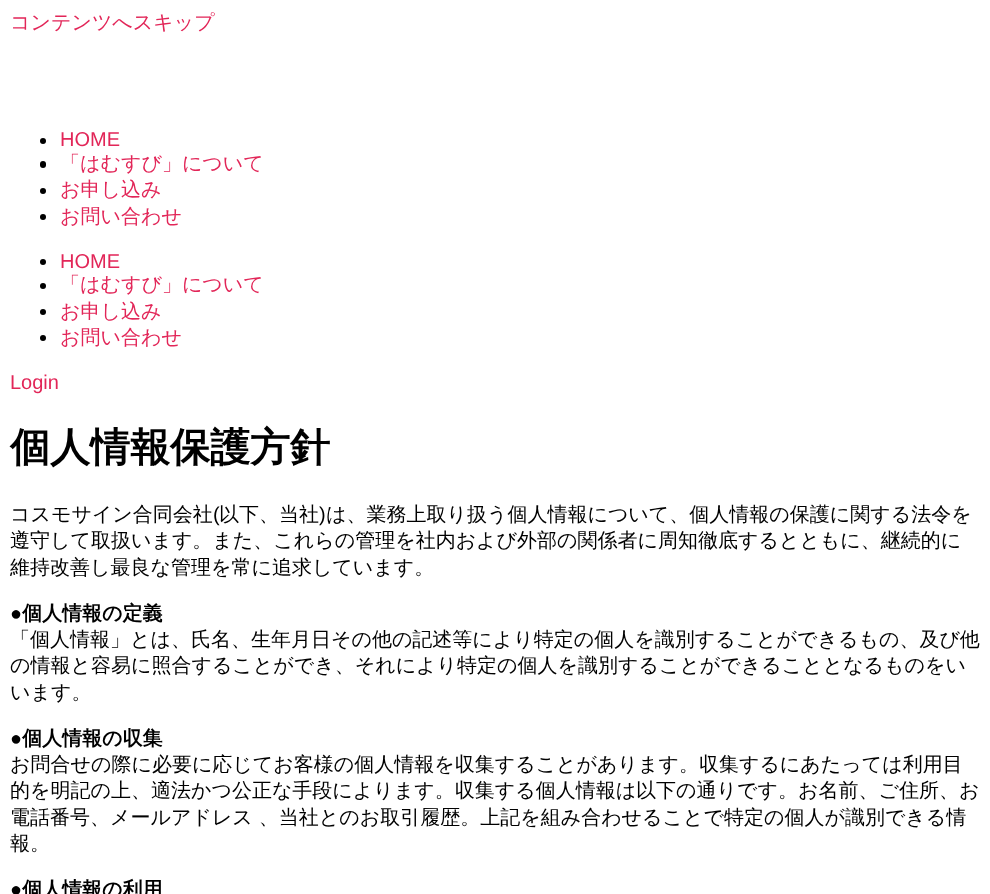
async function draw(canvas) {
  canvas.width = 990;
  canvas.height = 894;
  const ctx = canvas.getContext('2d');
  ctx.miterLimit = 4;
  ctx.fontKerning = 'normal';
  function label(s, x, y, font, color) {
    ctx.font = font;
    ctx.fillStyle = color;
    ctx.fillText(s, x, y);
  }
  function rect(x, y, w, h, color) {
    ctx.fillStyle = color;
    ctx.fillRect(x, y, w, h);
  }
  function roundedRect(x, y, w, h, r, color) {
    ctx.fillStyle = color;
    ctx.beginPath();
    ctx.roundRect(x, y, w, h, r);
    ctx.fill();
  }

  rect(0, 0, 990, 894, '#fff');
  label('コンテンツへスキップ', 10, 29, '500 20px WenQuanYi Zen Hei', '#e22658');
  ctx.fillStyle = '#000';
  ctx.beginPath();
  ctx.arc(43, 141, 3, 0, 2 * Math.PI);
  ctx.fill();
  label('HOME', 60, 146, '20px Liberation Sans', '#e22658');
  roundedRect(40, 161, 6, 7, 3, '#000');
  label('「はむすび」について', 60, 170, '500 20px WenQuanYi Zen Hei', '#e22658');
  ctx.fillStyle = '#000';
  ctx.beginPath();
  ctx.arc(43, 191, 3, 0, 2 * Math.PI);
  ctx.fill();
  label('お申し込み', 60, 196, '500 20px WenQuanYi Zen Hei', '#e22658');
  ctx.fillStyle = '#000';
  ctx.beginPath();
  ctx.arc(43, 217, 3, 0, 2 * Math.PI);
  ctx.fill();
  label('お問い合わせ', 60, 223, '500 20px WenQuanYi Zen Hei', '#e22658');
  ctx.fillStyle = '#000';
  ctx.beginPath();
  ctx.arc(43, 262, 3, 0, 2 * Math.PI);
  ctx.fill();
  label('HOME', 60, 268, '20px Liberation Sans', '#e22658');
  ctx.fillStyle = '#000';
  ctx.beginPath();
  ctx.arc(43, 286, 3, 0, 2 * Math.PI);
  ctx.fill();
  label('「はむすび」について', 60, 291, '500 20px WenQuanYi Zen Hei', '#e22658');
  ctx.fillStyle = '#000';
  ctx.beginPath();
  ctx.arc(43, 312, 3, 0, 2 * Math.PI);
  ctx.fill();
  label('お申し込み', 60, 318, '500 20px WenQuanYi Zen Hei', '#e22658');
  ctx.fillStyle = '#000';
  ctx.beginPath();
  ctx.arc(43, 338, 3, 0, 2 * Math.PI);
  ctx.fill();
  label('お問い合わせ', 60, 344, '500 20px WenQuanYi Zen Hei', '#e22658');
  label('Login', 10, 389, '20px Liberation Sans', '#e22658');
  label('個人情報保護方針', 10, 461, 'bold 40px WenQuanYi Zen Hei', '#000');
  label('コスモサイン合同会社', 10, 521, '500 20px WenQuanYi Zen Hei', '#000');
  label('(', 213, 521, '20px Liberation Sans', '#000');
  label('以下、当社', 219, 521, '500 20px WenQuanYi Zen Hei', '#000');
  label(')', 319, 521, '20px Liberation Sans', '#000');
  label('は、業務上取り扱う個人情報について、個人情報の保護に関する法令を', 326, 521, '500 20px WenQuanYi Zen Hei', '#000');
  label('遵守して取扱います。また、これらの管理を社内および外部の関係者に周知徹底するとともに、継続的に', 10, 547, '500 20px WenQuanYi Zen Hei', '#000');
  label('維持改善し最良な管理を常に追求しています。', 10, 574, '500 20px WenQuanYi Zen Hei', '#000');
  label('●', 10, 620, 'bold 20px Liberation Sans', '#000');
  label('個人情報の定義', 22, 620, 'bold 20px WenQuanYi Zen Hei', '#000');
  label('「個人情報」とは、氏名、生年月日その他の記述等により特定の個人を識別することができるもの、及び他', 10, 646, '500 20px WenQuanYi Zen Hei', '#000');
  label('の情報と容易に照合することができ、それにより特定の個人を識別することができることとなるものをい', 10, 672, '500 20px WenQuanYi Zen Hei', '#000');
  label('います。', 10, 699, '500 20px WenQuanYi Zen Hei', '#000');
  label('●', 10, 745, 'bold 20px Liberation Sans', '#000');
  label('個人情報の収集', 22, 745, 'bold 20px WenQuanYi Zen Hei', '#000');
  label('お問合せの際に必要に応じてお客様の個人情報を収集することがあります。収集するにあたっては利用目', 10, 771, '500 20px WenQuanYi Zen Hei', '#000');
  label('的を明記の上、適法かつ公正な手段によります。収集する個人情報は以下の通りです。お名前、ご住所、お', 10, 797, '500 20px WenQuanYi Zen Hei', '#000');
  label('電話番号、メールアドレス 、当社とのお取引履歴。上記を組み合わせることで特定の個人が識別できる情', 10, 824, '500 20px WenQuanYi Zen Hei', '#000');
  label('報。', 10, 850, '500 20px WenQuanYi Zen Hei', '#000');
  label('●', 10, 896, 'bold 20px Liberation Sans', '#000');
  label('個人情報の利用', 22, 896, 'bold 20px WenQuanYi Zen Hei', '#000');
}

draw(document.querySelector('canvas'));
